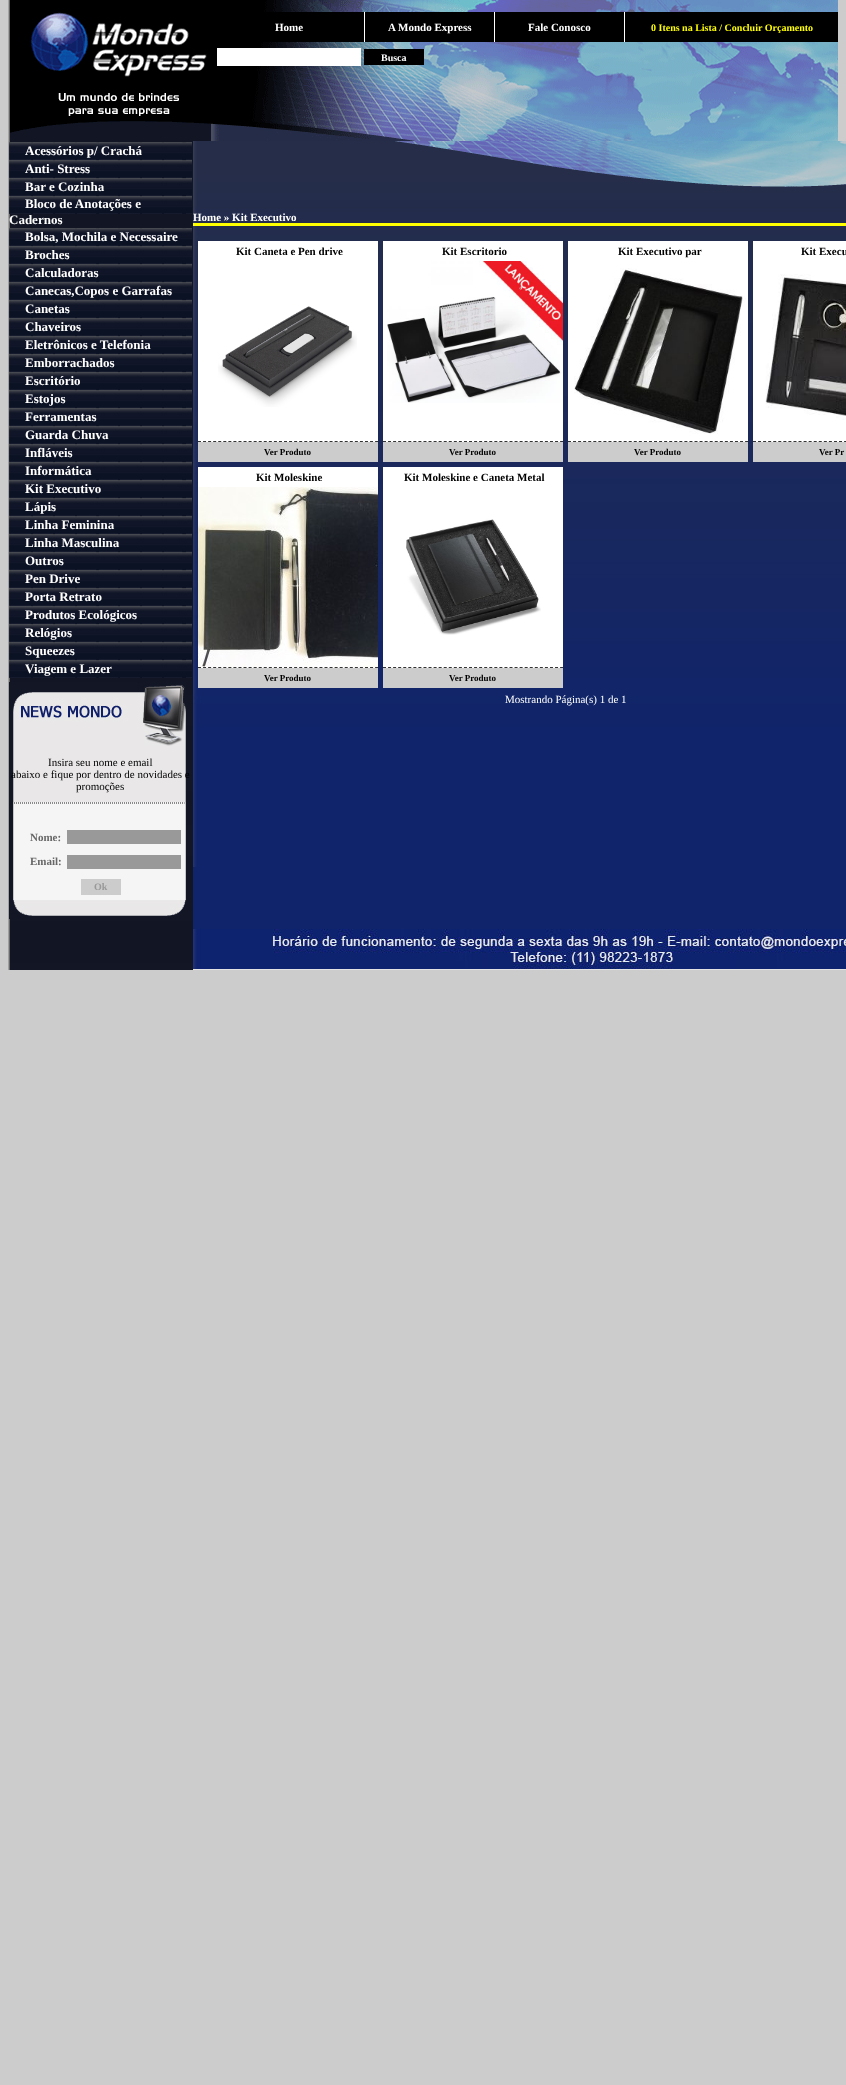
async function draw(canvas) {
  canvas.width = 846;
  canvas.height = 2085;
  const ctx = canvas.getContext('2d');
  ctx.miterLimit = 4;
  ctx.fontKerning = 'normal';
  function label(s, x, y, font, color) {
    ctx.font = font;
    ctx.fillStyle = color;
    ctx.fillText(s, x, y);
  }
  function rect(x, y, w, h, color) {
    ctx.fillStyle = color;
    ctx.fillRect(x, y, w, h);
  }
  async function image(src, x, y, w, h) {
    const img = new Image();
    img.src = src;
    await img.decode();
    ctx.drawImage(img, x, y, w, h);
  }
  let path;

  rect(0, 0, 846, 2085, '#ccc');
  await image('assets/img1.png', 8, 0, 207, 141);
  await image('assets/img2.png', 215, 0, 623, 141);
  rect(261, 12, 577, 30, '#000');
  label('Home', 275, 31, 'bold 11px Liberation Serif', '#fff');
  rect(494, 12, 1, 30, '#fff');
  rect(364, 12, 1, 30, '#fff');
  label('A Mondo Express', 388, 31, 'bold 11px Liberation Serif', '#fff');
  rect(624, 12, 1, 30, '#fff');
  label('Fale Conosco', 528, 31, 'bold 11px Liberation Serif', '#fff');
  label('0 Itens na Lista / Concluir Orçamento', 651, 31, 'bold 10px Liberation Serif', '#ff0');
  rect(217, 48, 144, 18, '#fff');
  rect(364, 49, 60, 16, '#000');
  label('Busca', 381, 61, 'bold 10px Liberation Serif', '#fff');
  await image('assets/img3.png', 8, 141, 185, 788);
  await image('assets/img4.png', 9, 142, 183, 18);
  label('Acessórios p/ Crachá', 25, 155, 'bold 13px Liberation Serif', '#fff');
  await image('assets/img4.png', 9, 160, 183, 18);
  label('Anti- Stress', 25, 173, 'bold 13px Liberation Serif', '#fff');
  await image('assets/img4.png', 9, 178, 183, 18);
  label('Bar e Cozinha', 25, 191, 'bold 13px Liberation Serif', '#fff');
  await image('assets/img4.png', 9, 196, 183, 18);
  label('Bloco de Anotações e', 25, 208, 'bold 13px Liberation Serif', '#fff');
  label('Cadernos', 9, 224, 'bold 13px Liberation Serif', '#fff');
  await image('assets/img4.png', 9, 228, 183, 18);
  label('Bolsa, Mochila e Necessaire', 25, 241, 'bold 13px Liberation Serif', '#fff');
  await image('assets/img4.png', 9, 246, 183, 18);
  label('Broches', 25, 259, 'bold 13px Liberation Serif', '#fff');
  await image('assets/img4.png', 9, 264, 183, 18);
  label('Calculadoras', 25, 277, 'bold 13px Liberation Serif', '#fff');
  await image('assets/img4.png', 9, 282, 183, 18);
  label('Canecas,Copos e Garrafas', 25, 295, 'bold 13px Liberation Serif', '#fff');
  await image('assets/img4.png', 9, 300, 183, 18);
  label('Canetas', 25, 313, 'bold 13px Liberation Serif', '#fff');
  await image('assets/img4.png', 9, 318, 183, 18);
  label('Chaveiros', 25, 331, 'bold 13px Liberation Serif', '#fff');
  await image('assets/img4.png', 9, 336, 183, 18);
  label('Eletrônicos e Telefonia', 25, 349, 'bold 13px Liberation Serif', '#fff');
  await image('assets/img4.png', 9, 354, 183, 18);
  label('Emborrachados', 25, 367, 'bold 13px Liberation Serif', '#fff');
  await image('assets/img4.png', 9, 372, 183, 18);
  label('Escritório', 25, 385, 'bold 13px Liberation Serif', '#fff');
  await image('assets/img4.png', 9, 390, 183, 18);
  label('Estojos', 25, 403, 'bold 13px Liberation Serif', '#fff');
  await image('assets/img4.png', 9, 408, 183, 18);
  label('Ferramentas', 25, 421, 'bold 13px Liberation Serif', '#fff');
  await image('assets/img4.png', 9, 426, 183, 18);
  label('Guarda Chuva', 25, 439, 'bold 13px Liberation Serif', '#fff');
  await image('assets/img4.png', 9, 444, 183, 18);
  label('Infláveis', 25, 457, 'bold 13px Liberation Serif', '#fff');
  await image('assets/img4.png', 9, 462, 183, 18);
  label('Informática', 25, 475, 'bold 13px Liberation Serif', '#fff');
  await image('assets/img4.png', 9, 480, 183, 18);
  label('Kit Executivo', 25, 493, 'bold 13px Liberation Serif', '#fff');
  await image('assets/img4.png', 9, 498, 183, 18);
  label('Lápis', 25, 511, 'bold 13px Liberation Serif', '#fff');
  await image('assets/img4.png', 9, 516, 183, 18);
  label('Linha Feminina', 25, 529, 'bold 13px Liberation Serif', '#fff');
  await image('assets/img4.png', 9, 534, 183, 18);
  label('Linha Masculina', 25, 547, 'bold 13px Liberation Serif', '#fff');
  await image('assets/img4.png', 9, 552, 183, 18);
  label('Outros', 25, 565, 'bold 13px Liberation Serif', '#fff');
  await image('assets/img4.png', 9, 570, 183, 18);
  label('Pen Drive', 25, 583, 'bold 13px Liberation Serif', '#fff');
  await image('assets/img4.png', 9, 588, 183, 18);
  label('Porta Retrato', 25, 601, 'bold 13px Liberation Serif', '#fff');
  await image('assets/img4.png', 9, 606, 183, 18);
  label('Produtos Ecológicos', 25, 619, 'bold 13px Liberation Serif', '#fff');
  await image('assets/img4.png', 9, 624, 183, 18);
  label('Relógios', 25, 637, 'bold 13px Liberation Serif', '#fff');
  await image('assets/img4.png', 9, 642, 183, 18);
  label('Squeezes', 25, 655, 'bold 13px Liberation Serif', '#fff');
  await image('assets/img4.png', 9, 660, 183, 18);
  label('Viagem e Lazer', 25, 673, 'bold 13px Liberation Serif', '#fff');
  await image('assets/img5.png', 9, 682, 177, 237);
  label('Insira seu nome e email', 48, 766, '11px Liberation Serif', '#000');
  label('abaixo e fique por dentro de novidades e', 11, 778, '11px Liberation Serif', '#000');
  label('promoções', 76, 790, '11px Liberation Serif', '#000');
  label('Nome:', 30, 841, 'bold 11px Liberation Serif', '#666');
  rect(67, 830, 114, 14, '#999');
  label('Email:', 30, 865, 'bold 11px Liberation Serif', '#666');
  rect(67, 855, 114, 14, '#999');
  rect(81, 879, 40, 16, '#ccc');
  label('Ok', 94, 890, 'bold 10px Liberation Serif', '#999');
  await image('assets/img6.png', 193, 141, 653, 65);
  await image('assets/img7.png', 193, 206, 653, 723);
  label('Home » Kit Executivo', 193, 221, 'bold 11px Liberation Serif', '#fff');
  rect(193, 223, 653, 3, '#ff0');
  rect(198, 241, 180, 201, '#fff');
  label('Kit Caneta e Pen drive', 236, 255, 'bold 11px Liberation Serif', '#000');
  path = new Path2D('M198 441.5H378');
  ctx.strokeStyle = '#333';
  ctx.setLineDash([3, 2.06]);
  ctx.stroke(path);
  await image('assets/img8.png', 218, 306, 139, 101);
  rect(198, 442, 180, 20, '#ccc');
  label('Ver Produto', 264, 455, 'bold 9px Liberation Serif', '#000');
  rect(383, 241, 180, 201, '#fff');
  label('Kit Escritorio', 442, 255, 'bold 11px Liberation Serif', '#000');
  path = new Path2D('M383 441.5H563');
  ctx.stroke(path);
  await image('assets/img9.png', 387, 261, 176, 142);
  rect(383, 442, 180, 20, '#ccc');
  label('Ver Produto', 449, 455, 'bold 9px Liberation Serif', '#000');
  rect(568, 241, 180, 201, '#fff');
  label('Kit Executivo par', 618, 255, 'bold 11px Liberation Serif', '#000');
  path = new Path2D('M568 441.5H748');
  ctx.stroke(path);
  await image('assets/img10.png', 574, 268, 172, 166);
  rect(568, 442, 180, 20, '#ccc');
  label('Ver Produto', 634, 455, 'bold 9px Liberation Serif', '#000');
  rect(753, 241, 93, 201, '#fff');
  label('Kit Execu', 801, 255, 'bold 11px Liberation Serif', '#000');
  path = new Path2D('M753 441.5H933');
  ctx.stroke(path);
  await image('assets/img11.png', 765, 274, 81, 146);
  rect(753, 442, 93, 20, '#ccc');
  label('Ver Pr', 819, 455, 'bold 9px Liberation Serif', '#000');
  rect(198, 467, 180, 201, '#fff');
  label('Kit Moleskine', 256, 481, 'bold 11px Liberation Serif', '#000');
  path = new Path2D('M198 667.5H378');
  ctx.stroke(path);
  await image('assets/img12.png', 198, 487, 180, 180);
  rect(198, 668, 180, 20, '#ccc');
  label('Ver Produto', 264, 681, 'bold 9px Liberation Serif', '#000');
  rect(383, 467, 180, 201, '#fff');
  label('Kit Moleskine e Caneta Metal', 404, 481, 'bold 11px Liberation Serif', '#000');
  path = new Path2D('M383 667.5H563');
  ctx.stroke(path);
  await image('assets/img13.png', 406, 519, 135, 116);
  rect(383, 668, 180, 20, '#ccc');
  label('Ver Produto', 449, 681, 'bold 9px Liberation Serif', '#000');
  label('Mostrando Página(s) 1 de 1', 505, 703, '11px Liberation Serif', '#fff');
  await image('assets/img14.png', 8, 929, 185, 41);
  await image('assets/img15.png', 193, 929, 653, 41);
}

draw(document.querySelector('canvas'));
